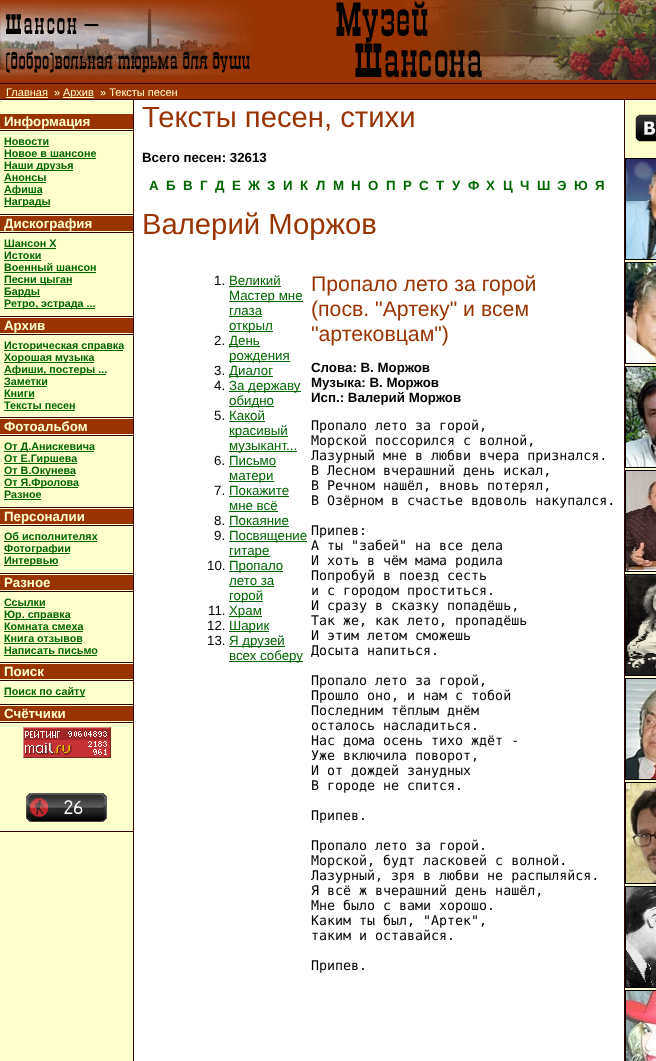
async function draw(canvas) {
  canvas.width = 656;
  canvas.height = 1061;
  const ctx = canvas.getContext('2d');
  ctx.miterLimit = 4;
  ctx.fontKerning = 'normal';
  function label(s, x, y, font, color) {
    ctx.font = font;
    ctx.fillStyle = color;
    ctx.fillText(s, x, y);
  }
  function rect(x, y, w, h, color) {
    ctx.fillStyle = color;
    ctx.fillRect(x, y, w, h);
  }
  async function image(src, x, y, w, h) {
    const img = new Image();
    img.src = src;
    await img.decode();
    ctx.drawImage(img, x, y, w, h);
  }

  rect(0, 0, 656, 1061, '#fff');
  rect(0, 0, 656, 83, '#930');
  await image('assets/img1.png', 0, 0, 252, 80);
  await image('assets/img2.png', 336, 0, 320, 80);
  rect(0, 84, 656, 15, '#930');
  rect(0, 83, 656, 1, '#300');
  rect(0, 99, 656, 1, '#300');
  label('Главная', 6, 96, '11px Liberation Sans', '#ffc');
  rect(6, 97, 42, 1, '#ffc');
  label('»', 54, 96, '11px Liberation Sans', '#ffc');
  rect(63, 97, 31, 1, '#ffc');
  label('Архив', 63, 96, '11px Liberation Sans', '#ffc');
  label('» Тексты песен', 100, 96, '11px Liberation Sans', '#ffc');
  rect(0, 100, 133, 961, '#ffc');
  rect(0, 114, 133, 15, '#930');
  label('Информация', 4, 126, 'bold 13.3px Liberation Sans', '#ffc');
  rect(0, 130, 133, 1, '#300');
  rect(0, 214, 133, 1, '#300');
  label('Новости', 4, 145, 'bold 10.75px Liberation Sans', '#060');
  rect(4, 146, 45, 1, '#060');
  label('Новое в шансоне', 4, 157, 'bold 10.75px Liberation Sans', '#060');
  rect(4, 158, 92, 1, '#060');
  rect(4, 170, 69, 1, '#060');
  label('Наши друзья', 4, 169, 'bold 10.75px Liberation Sans', '#060');
  label('Анонсы', 4, 181, 'bold 10.75px Liberation Sans', '#060');
  rect(4, 182, 42, 1, '#060');
  rect(4, 194, 38, 1, '#060');
  label('Афиша', 4, 193, 'bold 10.75px Liberation Sans', '#060');
  rect(4, 206, 46, 1, '#060');
  label('Награды', 4, 205, 'bold 10.75px Liberation Sans', '#060');
  rect(0, 216, 133, 15, '#930');
  label('Дискография', 4, 228, 'bold 13.3px Liberation Sans', '#ffc');
  rect(0, 232, 133, 1, '#300');
  rect(0, 316, 133, 1, '#300');
  label('Шансон X', 4, 247, 'bold 10.75px Liberation Sans', '#060');
  rect(4, 248, 52, 1, '#060');
  label('Истоки', 4, 259, 'bold 10.75px Liberation Sans', '#060');
  rect(4, 260, 37, 1, '#060');
  label('Военный шансон', 4, 271, 'bold 10.75px Liberation Sans', '#060');
  rect(4, 272, 92, 1, '#060');
  rect(4, 284, 68, 1, '#060');
  label('Песни цыган', 4, 283, 'bold 10.75px Liberation Sans', '#060');
  rect(4, 296, 36, 1, '#060');
  label('Барды', 4, 295, 'bold 10.75px Liberation Sans', '#060');
  rect(4, 308, 91, 1, '#060');
  label('Ретро, эстрада ...', 4, 307, 'bold 10.75px Liberation Sans', '#060');
  rect(0, 318, 133, 15, '#930');
  label('Архив', 4, 330, 'bold 13.3px Liberation Sans', '#ffc');
  rect(0, 334, 133, 1, '#300');
  rect(0, 417, 133, 1, '#300');
  rect(4, 350, 119, 1, '#060');
  label('Историческая справка', 4, 349, 'bold 10.75px Liberation Sans', '#060');
  rect(4, 362, 90, 1, '#060');
  label('Хорошая музыка', 4, 361, 'bold 10.75px Liberation Sans', '#060');
  rect(4, 374, 102, 1, '#060');
  label('Афиши, постеры ...', 4, 373, 'bold 10.75px Liberation Sans', '#060');
  label('Заметки', 4, 385, 'bold 10.75px Liberation Sans', '#060');
  rect(4, 386, 43, 1, '#060');
  label('Книги', 4, 397, 'bold 10.75px Liberation Sans', '#060');
  rect(4, 398, 30, 1, '#060');
  label('Тексты песен', 4, 409, 'bold 10.75px Liberation Sans', '#060');
  rect(4, 410, 71, 1, '#060');
  rect(0, 419, 133, 15, '#930');
  label('Фотоальбом', 4, 431, 'bold 13.3px Liberation Sans', '#ffc');
  rect(0, 435, 133, 1, '#300');
  rect(0, 507, 133, 1, '#300');
  rect(4, 451, 90, 1, '#060');
  label('От Д.Анискевича', 4, 450, 'bold 10.75px Liberation Sans', '#060');
  rect(4, 463, 73, 1, '#060');
  label('От Е.Гиршева', 4, 462, 'bold 10.75px Liberation Sans', '#060');
  rect(4, 475, 71, 1, '#060');
  label('От В.Окунева', 4, 474, 'bold 10.75px Liberation Sans', '#060');
  rect(4, 487, 74, 1, '#060');
  label('От Я.Фролова', 4, 486, 'bold 10.75px Liberation Sans', '#060');
  label('Разное', 4, 498, 'bold 10.75px Liberation Sans', '#060');
  rect(4, 499, 37, 1, '#060');
  rect(0, 509, 133, 15, '#930');
  label('Персоналии', 4, 521, 'bold 13.3px Liberation Sans', '#ffc');
  rect(0, 525, 133, 1, '#300');
  rect(0, 573, 133, 1, '#300');
  label('Об исполнителях', 4, 540, 'bold 10.75px Liberation Sans', '#060');
  rect(4, 541, 93, 1, '#060');
  rect(4, 553, 66, 1, '#060');
  label('Фотографии', 4, 552, 'bold 10.75px Liberation Sans', '#060');
  rect(4, 565, 54, 1, '#060');
  label('Интервью', 4, 564, 'bold 10.75px Liberation Sans', '#060');
  rect(0, 575, 133, 15, '#930');
  label('Разное', 4, 587, 'bold 13.3px Liberation Sans', '#ffc');
  rect(0, 591, 133, 1, '#300');
  rect(0, 662, 133, 1, '#300');
  label('Ссылки', 4, 606, 'bold 10.75px Liberation Sans', '#060');
  rect(4, 607, 41, 1, '#060');
  rect(4, 619, 66, 1, '#060');
  label('Юр. справка', 4, 618, 'bold 10.75px Liberation Sans', '#060');
  label('Комната смеха', 4, 630, 'bold 10.75px Liberation Sans', '#060');
  rect(4, 631, 79, 1, '#060');
  label('Книга отзывов', 4, 642, 'bold 10.75px Liberation Sans', '#060');
  rect(4, 643, 78, 1, '#060');
  label('Написать письмо', 4, 654, 'bold 10.75px Liberation Sans', '#060');
  rect(4, 655, 93, 1, '#060');
  rect(0, 664, 133, 15, '#930');
  label('Поиск', 4, 676, 'bold 13.3px Liberation Sans', '#ffc');
  rect(0, 680, 133, 1, '#300');
  rect(0, 704, 133, 1, '#300');
  rect(4, 696, 81, 1, '#060');
  label('Поиск по сайту', 4, 695, 'bold 10.75px Liberation Sans', '#060');
  rect(0, 706, 133, 15, '#930');
  label('Счётчики', 4, 718, 'bold 13.3px Liberation Sans', '#ffc');
  rect(0, 722, 133, 1, '#300');
  rect(0, 831, 133, 1, '#300');
  await image('assets/img3.png', 23, 727, 88, 31);
  await image('assets/img4.png', 26, 793, 81, 29);
  rect(624, 100, 1, 961, '#300');
  rect(133, 100, 1, 961, '#300');
  label('Тексты песен, стихи', 142, 127, '29.25px Liberation Sans', '#930');
  label('Всего песен: 32613', 142, 162, 'bold 13.3px Liberation Sans', '#000');
  label('А', 149, 190, 'bold 13.3px Liberation Sans', '#060');
  label('Б', 166, 190, 'bold 13.3px Liberation Sans', '#060');
  label('В', 183, 190, 'bold 13.3px Liberation Sans', '#060');
  label('Г', 200, 190, 'bold 13.3px Liberation Sans', '#060');
  label('Д', 215, 190, 'bold 13.3px Liberation Sans', '#060');
  label('Е', 232, 190, 'bold 13.3px Liberation Sans', '#060');
  label('Ж', 248, 190, 'bold 13.3px Liberation Sans', '#060');
  label('З', 267, 190, 'bold 13.3px Liberation Sans', '#060');
  label('И', 283, 190, 'bold 13.3px Liberation Sans', '#060');
  label('К', 300, 190, 'bold 13.3px Liberation Sans', '#060');
  label('Л', 316, 190, 'bold 13.3px Liberation Sans', '#060');
  label('М', 333, 190, 'bold 13.3px Liberation Sans', '#060');
  label('Н', 351, 190, 'bold 13.3px Liberation Sans', '#060');
  label('О', 368, 190, 'bold 13.3px Liberation Sans', '#060');
  label('П', 386, 190, 'bold 13.3px Liberation Sans', '#060');
  label('Р', 403, 190, 'bold 13.3px Liberation Sans', '#060');
  label('С', 419, 190, 'bold 13.3px Liberation Sans', '#060');
  label('Т', 436, 190, 'bold 13.3px Liberation Sans', '#060');
  label('У', 452, 190, 'bold 13.3px Liberation Sans', '#060');
  label('Ф', 468, 190, 'bold 13.3px Liberation Sans', '#060');
  label('Х', 486, 190, 'bold 13.3px Liberation Sans', '#060');
  label('Ц', 503, 190, 'bold 13.3px Liberation Sans', '#060');
  label('Ч', 520, 190, 'bold 13.3px Liberation Sans', '#060');
  label('Ш', 537, 190, 'bold 13.3px Liberation Sans', '#060');
  label('Э', 557, 190, 'bold 13.3px Liberation Sans', '#060');
  label('Ю', 574, 190, 'bold 13.3px Liberation Sans', '#060');
  label('Я', 595, 190, 'bold 13.3px Liberation Sans', '#060');
  label('Валерий Моржов', 142, 234, '29.25px Liberation Sans', '#930');
  label('1.', 214, 285, '13.3px Liberation Sans', '#000');
  label('Великий', 229, 285, '13.3px Liberation Sans', '#060');
  rect(229, 286, 52, 1, '#060');
  rect(229, 301, 74, 1, '#060');
  label('Мастер мне', 229, 300, '13.3px Liberation Sans', '#060');
  label('глаза', 229, 315, '13.3px Liberation Sans', '#060');
  rect(229, 316, 33, 1, '#060');
  rect(229, 331, 44, 1, '#060');
  label('открыл', 229, 330, '13.3px Liberation Sans', '#060');
  label('2.', 214, 345, '13.3px Liberation Sans', '#000');
  rect(229, 346, 31, 1, '#060');
  label('День', 229, 345, '13.3px Liberation Sans', '#060');
  rect(229, 361, 61, 1, '#060');
  label('рождения', 229, 360, '13.3px Liberation Sans', '#060');
  label('3.', 214, 375, '13.3px Liberation Sans', '#000');
  rect(229, 376, 44, 1, '#060');
  label('Диалог', 229, 375, '13.3px Liberation Sans', '#060');
  label('4.', 214, 390, '13.3px Liberation Sans', '#000');
  rect(229, 391, 72, 1, '#060');
  label('За державу', 229, 390, '13.3px Liberation Sans', '#060');
  rect(229, 406, 45, 1, '#060');
  label('обидно', 229, 405, '13.3px Liberation Sans', '#060');
  label('5.', 214, 420, '13.3px Liberation Sans', '#000');
  label('Какой', 229, 420, '13.3px Liberation Sans', '#060');
  rect(229, 421, 36, 1, '#060');
  rect(229, 436, 59, 1, '#060');
  label('красивый', 229, 435, '13.3px Liberation Sans', '#060');
  rect(229, 451, 68, 1, '#060');
  label('музыкант...', 229, 450, '13.3px Liberation Sans', '#060');
  label('6.', 214, 465, '13.3px Liberation Sans', '#000');
  label('Письмо', 229, 465, '13.3px Liberation Sans', '#060');
  rect(229, 466, 47, 1, '#060');
  rect(229, 481, 45, 1, '#060');
  label('матери', 229, 480, '13.3px Liberation Sans', '#060');
  label('7.', 214, 495, '13.3px Liberation Sans', '#000');
  label('Покажите', 229, 495, '13.3px Liberation Sans', '#060');
  rect(229, 496, 60, 1, '#060');
  label('мне всё', 229, 510, '13.3px Liberation Sans', '#060');
  rect(229, 511, 49, 1, '#060');
  label('8.', 214, 525, '13.3px Liberation Sans', '#000');
  label('Покаяние', 229, 525, '13.3px Liberation Sans', '#060');
  rect(229, 526, 60, 1, '#060');
  label('9.', 214, 540, '13.3px Liberation Sans', '#000');
  rect(229, 541, 78, 1, '#060');
  label('Посвящение', 229, 540, '13.3px Liberation Sans', '#060');
  rect(229, 556, 41, 1, '#060');
  label('гитаре', 229, 555, '13.3px Liberation Sans', '#060');
  label('10.', 207, 570, '13.3px Liberation Sans', '#000');
  rect(229, 571, 54, 1, '#060');
  label('Пропало', 229, 570, '13.3px Liberation Sans', '#060');
  label('лето за', 229, 585, '13.3px Liberation Sans', '#060');
  rect(229, 586, 45, 1, '#060');
  rect(229, 601, 34, 1, '#060');
  label('горой', 229, 600, '13.3px Liberation Sans', '#060');
  label('11.', 208, 615, '13.3px Liberation Sans', '#000');
  rect(229, 616, 33, 1, '#060');
  label('Храм', 229, 615, '13.3px Liberation Sans', '#060');
  label('12.', 207, 630, '13.3px Liberation Sans', '#000');
  rect(229, 631, 40, 1, '#060');
  label('Шарик', 229, 630, '13.3px Liberation Sans', '#060');
  label('13.', 207, 645, '13.3px Liberation Sans', '#000');
  rect(229, 646, 56, 1, '#060');
  label('Я друзей', 229, 645, '13.3px Liberation Sans', '#060');
  rect(229, 661, 74, 1, '#060');
  label('всех соберу', 229, 660, '13.3px Liberation Sans', '#060');
  label('Пропало лето за горой', 311, 291, '21.25px Liberation Sans', '#930');
  label('(посв. "Артеку" и всем', 311, 316, '21.25px Liberation Sans', '#930');
  label('"артековцам")', 311, 341, '21.25px Liberation Sans', '#930');
  label('Слова: В. Моржов', 311, 372, 'bold 13.3px Liberation Sans', '#000');
  label('Музыка: В. Моржов', 311, 387, 'bold 13.3px Liberation Sans', '#000');
  label('Исп.: Валерий Моржов', 311, 402, 'bold 13.3px Liberation Sans', '#000');
  label('Пропало лето за горой,', 311, 430, '13.3px DejaVu Sans Mono', '#000');
  label('Морской поссорился с волной,', 311, 445, '13.3px DejaVu Sans Mono', '#000');
  label('Лазурный мне в любви вчера признался.', 311, 460, '13.3px DejaVu Sans Mono', '#000');
  label('В Лесном вчерашний день искал,', 311, 475, '13.3px DejaVu Sans Mono', '#000');
  label('В Речном нашёл, вновь потерял,', 311, 490, '13.3px DejaVu Sans Mono', '#000');
  label('В Озёрном в счастье вдоволь накупался.', 311, 505, '13.3px DejaVu Sans Mono', '#000');
  label('Припев:', 311, 535, '13.3px DejaVu Sans Mono', '#000');
  label('А ты "забей" на все дела', 311, 550, '13.3px DejaVu Sans Mono', '#000');
  label('И хоть в чём мама родила', 311, 565, '13.3px DejaVu Sans Mono', '#000');
  label('Попробуй в поезд сесть', 311, 580, '13.3px DejaVu Sans Mono', '#000');
  label('и с городом проститься.', 311, 595, '13.3px DejaVu Sans Mono', '#000');
  label('И сразу в сказку попадёшь,', 311, 610, '13.3px DejaVu Sans Mono', '#000');
  label('Так же, как лето, пропадёшь', 311, 625, '13.3px DejaVu Sans Mono', '#000');
  label('И этим летом сможешь', 311, 640, '13.3px DejaVu Sans Mono', '#000');
  label('Досыта напиться.', 311, 655, '13.3px DejaVu Sans Mono', '#000');
  label('Пропало лето за горой,', 311, 685, '13.3px DejaVu Sans Mono', '#000');
  label('Прошло оно, и нам с тобой', 311, 700, '13.3px DejaVu Sans Mono', '#000');
  label('Последним тёплым днём', 311, 715, '13.3px DejaVu Sans Mono', '#000');
  label('осталось насладиться.', 311, 730, '13.3px DejaVu Sans Mono', '#000');
  label('Нас дома осень тихо ждёт -', 311, 745, '13.3px DejaVu Sans Mono', '#000');
  label('Уже включила поворот,', 311, 760, '13.3px DejaVu Sans Mono', '#000');
  label('И от дождей занудных', 311, 775, '13.3px DejaVu Sans Mono', '#000');
  label('В городе не спится.', 311, 790, '13.3px DejaVu Sans Mono', '#000');
  label('Припев.', 311, 820, '13.3px DejaVu Sans Mono', '#000');
  label('Пропало лето за горой.', 311, 850, '13.3px DejaVu Sans Mono', '#000');
  label('Морской, будт ласковей с волной.', 311, 865, '13.3px DejaVu Sans Mono', '#000');
  label('Лазурный, зря в любви не распыляйся.', 311, 880, '13.3px DejaVu Sans Mono', '#000');
  label('Я всё ж вчерашний день нашёл,', 311, 895, '13.3px DejaVu Sans Mono', '#000');
  label('Мне было с вами хорошо.', 311, 910, '13.3px DejaVu Sans Mono', '#000');
  label('Каким ты был, "Артек",', 311, 925, '13.3px DejaVu Sans Mono', '#000');
  label('таким и оставайся.', 311, 940, '13.3px DejaVu Sans Mono', '#000');
  label('Припев.', 311, 970, '13.3px DejaVu Sans Mono', '#000');
  rect(625, 100, 31, 890, '#ffc');
  await image('assets/img5.png', 635, 114, 21, 28);
  ctx.strokeStyle = '#000';
  ctx.strokeRect(625.5, 158.5, 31, 101);
  await image('assets/img6.png', 626, 159, 30, 100);
  ctx.strokeRect(625.5, 262.5, 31, 101);
  await image('assets/img7.png', 626, 263, 30, 100);
  ctx.strokeRect(625.5, 366.5, 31, 101);
  await image('assets/img8.png', 626, 367, 30, 100);
  ctx.strokeRect(625.5, 470.5, 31, 101);
  await image('assets/img9.png', 626, 471, 30, 100);
  ctx.strokeRect(625.5, 574.5, 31, 101);
  await image('assets/img10.png', 626, 575, 30, 100);
  ctx.strokeRect(625.5, 678.5, 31, 101);
  await image('assets/img11.png', 626, 679, 30, 100);
  ctx.strokeRect(625.5, 782.5, 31, 101);
  await image('assets/img12.png', 626, 783, 30, 100);
  ctx.strokeRect(625.5, 886.5, 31, 101);
  await image('assets/img13.png', 626, 887, 30, 100);
  ctx.strokeRect(625.5, 990.5, 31, 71);
  await image('assets/img14.png', 626, 991, 30, 70);
}

draw(document.querySelector('canvas'));
